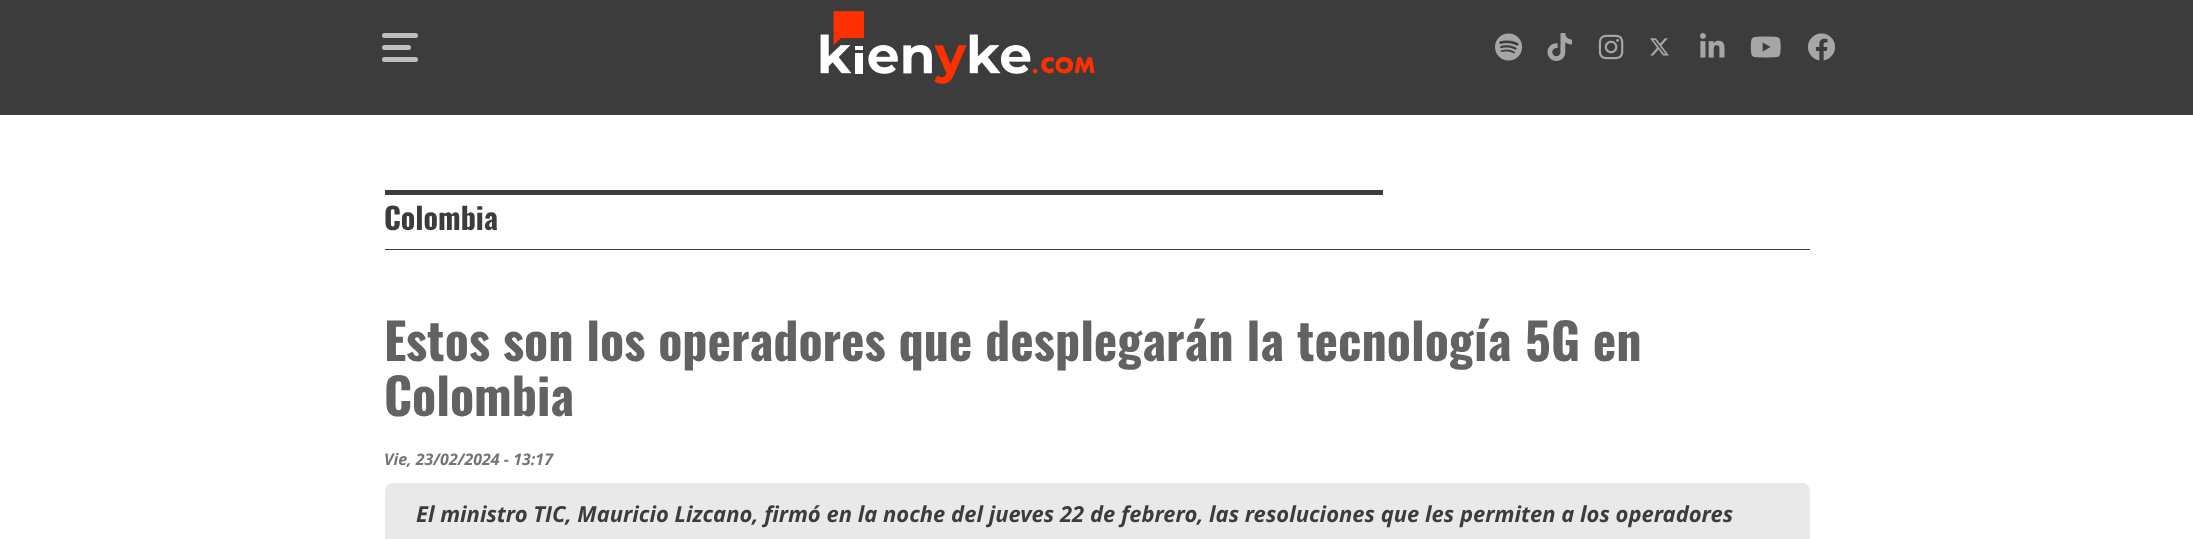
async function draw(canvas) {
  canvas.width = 2193;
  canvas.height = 539;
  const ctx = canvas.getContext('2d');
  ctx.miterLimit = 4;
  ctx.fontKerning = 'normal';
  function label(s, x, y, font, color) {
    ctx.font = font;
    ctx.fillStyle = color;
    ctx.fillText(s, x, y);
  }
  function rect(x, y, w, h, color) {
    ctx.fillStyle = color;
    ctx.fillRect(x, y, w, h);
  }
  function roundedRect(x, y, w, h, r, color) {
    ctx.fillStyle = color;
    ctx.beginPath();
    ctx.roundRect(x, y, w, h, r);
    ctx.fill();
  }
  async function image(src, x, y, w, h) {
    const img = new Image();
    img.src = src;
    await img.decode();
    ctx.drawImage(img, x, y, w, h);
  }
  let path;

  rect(0, 0, 2193, 539, '#fff');
  rect(0, 0, 2193, 115, '#3c3c3c');
  path = new Path2D('M384.5 35.5H415.5M384.5 59.5H415.5M384.5 47.5H408.5');
  ctx.strokeStyle = '#bfbfbf';
  ctx.lineWidth = 5;
  ctx.lineCap = 'round';
  ctx.stroke(path);
  await image('assets/img1.png', 820, 11, 275, 73);
  await image('assets/img2.png', 1495, 33, 28, 28);
  await image('assets/img3.png', 1547, 33, 25, 28);
  await image('assets/img4.png', 1598, 34, 26, 26);
  await image('assets/img5.png', 1650, 38, 19, 18);
  await image('assets/img6.png', 1700, 33, 25, 25);
  await image('assets/img7.png', 1750, 36, 31, 22);
  await image('assets/img8.png', 1808, 33, 27, 28);
  rect(385, 249, 1425, 1, '#3c3c3c');
  rect(385, 190, 998, 5, '#3c3c3c');
  label('Colombia', 384, 230, 'bold 30px Oswald', '#3c3c3c');
  label('Estos son los operadores que desplegarán la tecnología 5G en', 384, 361, 'bold 50px Oswald', '#626262');
  label('Colombia', 384, 416, 'bold 50px Oswald', '#626262');
  label('Vie, 23/02/2024 - 13:17', 384, 465, 'italic bold 16px Open Sans', '#797474');
  roundedRect(385, 483, 1425, 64, 8, '#e9e9e9');
  label('El ministro TIC, Mauricio Lizcano, firmó en la noche del jueves 22 de febrero, las resoluciones que les permiten a los operadores', 416, 522, 'italic bold 22px Open Sans', '#3c3c3c');
}

draw(document.querySelector('canvas'));
